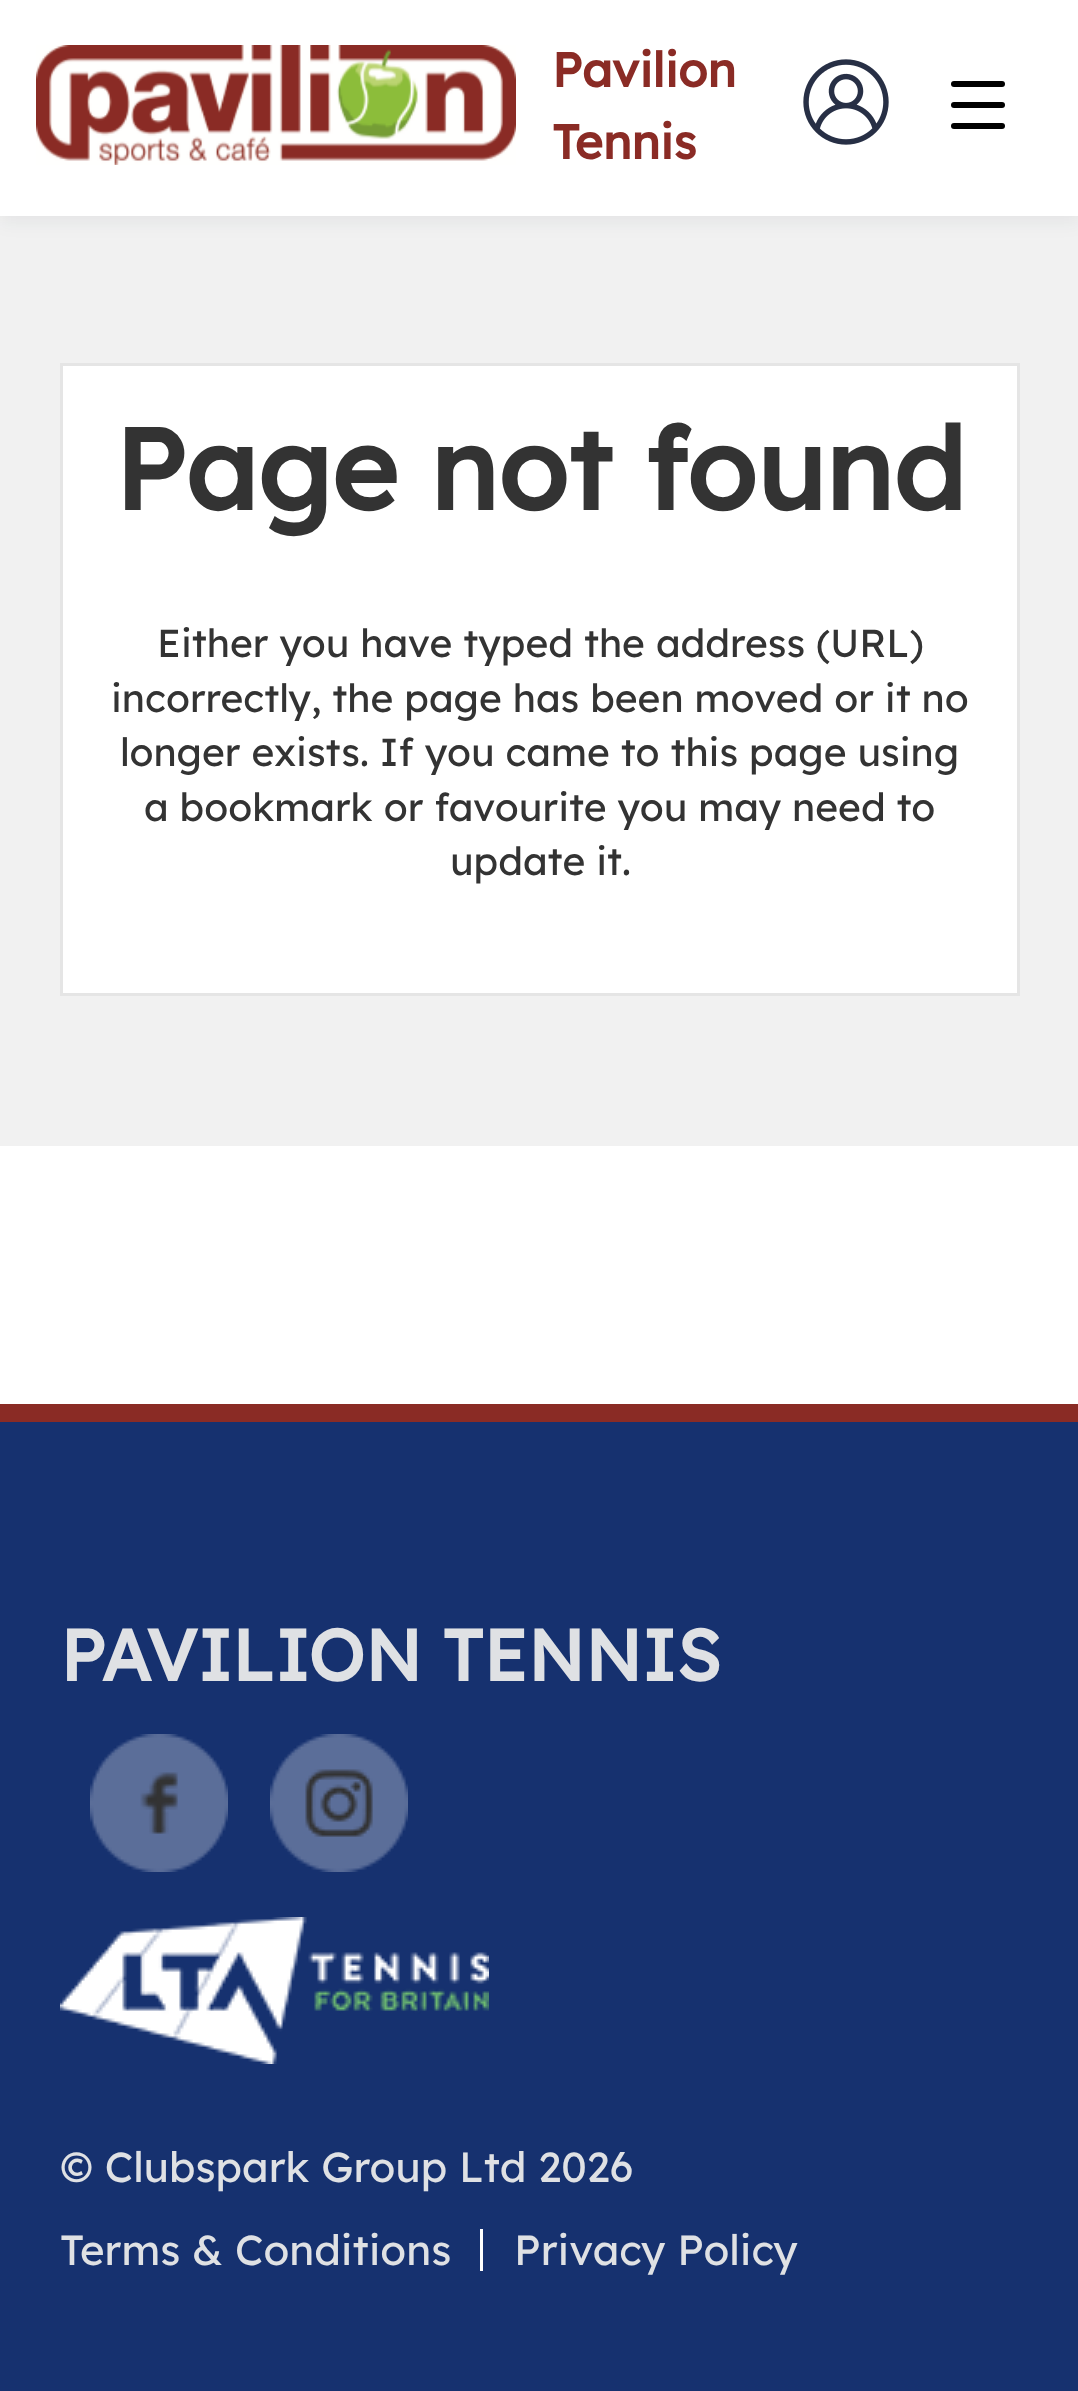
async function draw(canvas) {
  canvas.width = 1078;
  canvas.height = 2391;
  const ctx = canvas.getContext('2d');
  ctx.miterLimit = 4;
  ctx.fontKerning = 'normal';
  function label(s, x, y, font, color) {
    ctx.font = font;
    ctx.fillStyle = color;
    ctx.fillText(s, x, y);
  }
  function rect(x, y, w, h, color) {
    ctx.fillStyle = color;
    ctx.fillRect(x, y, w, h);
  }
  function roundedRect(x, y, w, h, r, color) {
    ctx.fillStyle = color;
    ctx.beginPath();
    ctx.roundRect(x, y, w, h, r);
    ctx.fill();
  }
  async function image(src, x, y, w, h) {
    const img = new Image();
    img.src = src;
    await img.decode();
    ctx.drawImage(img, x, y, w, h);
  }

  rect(0, 0, 1078, 2391, '#fff');
  rect(0, 216, 1078, 930, '#f1f1f1');
  ctx.fillStyle = '#141d370f';
  ctx.filter = 'blur(9px)';
  ctx.beginPath();
  ctx.rect(0, 6, 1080, 216);
  ctx.fill();
  ctx.filter = 'none';
  rect(0, 0, 1078, 216, '#fff');
  await image('assets/img1.png', 36, 45, 480, 120);
  label('Pavilion', 552, 87, 'bold 48px Lexend', '#8a2b25');
  label('Tennis', 552, 159, 'bold 48px Lexend', '#8a2b25');
  await image('assets/img2.png', 803, 59, 86, 86);
  roundedRect(951, 81, 54, 6, 3, '#000');
  roundedRect(951, 102, 54, 6, 3, '#000');
  roundedRect(951, 123, 54, 6, 3, '#000');
  ctx.fillStyle = '#fff';
  ctx.beginPath();
  ctx.rect(61.5, 364.5, 957, 630);
  ctx.fill();
  ctx.strokeStyle = '#e5e5e5';
  ctx.lineWidth = 3;
  ctx.stroke();
  label('Page not found', 114, 510, 'bold 114px Lexend', '#333');
  label('Either you have typed the address (URL)', 157, 657, '39px Lexend', '#333');
  label('incorrectly, the page has been moved or it no', 111, 712, '39px Lexend', '#333');
  label('longer exists. If you came to this page using', 120, 766, '39px Lexend', '#333');
  label('a bookmark or favourite you may need to', 144, 821, '39px Lexend', '#333');
  label('update it.', 450, 875, '39px Lexend', '#333');
  rect(0, 1422, 1078, 969, '#16316f');
  rect(0, 1404, 1078, 18, '#8a2b25');
  label('PAVILION TENNIS', 60, 1681, 'bold 72px Lexend', '#dfe1e4');
  await image('assets/img3.png', 90, 1734, 138, 138);
  await image('assets/img4.png', 270, 1734, 138, 138);
  await image('assets/img5.png', 60, 1917, 429, 147);
  label('© Clubspark Group Ltd 2026', 60, 2182, '42px Lexend', '#dfe1e4');
  rect(480, 2229, 3, 42, '#fff');
  label('Terms & Conditions', 60, 2265, '42px Lexend', '#dfe1e4');
  label('Privacy Policy', 514, 2265, '42px Lexend', '#dfe1e4');
}

draw(document.querySelector('canvas'));
